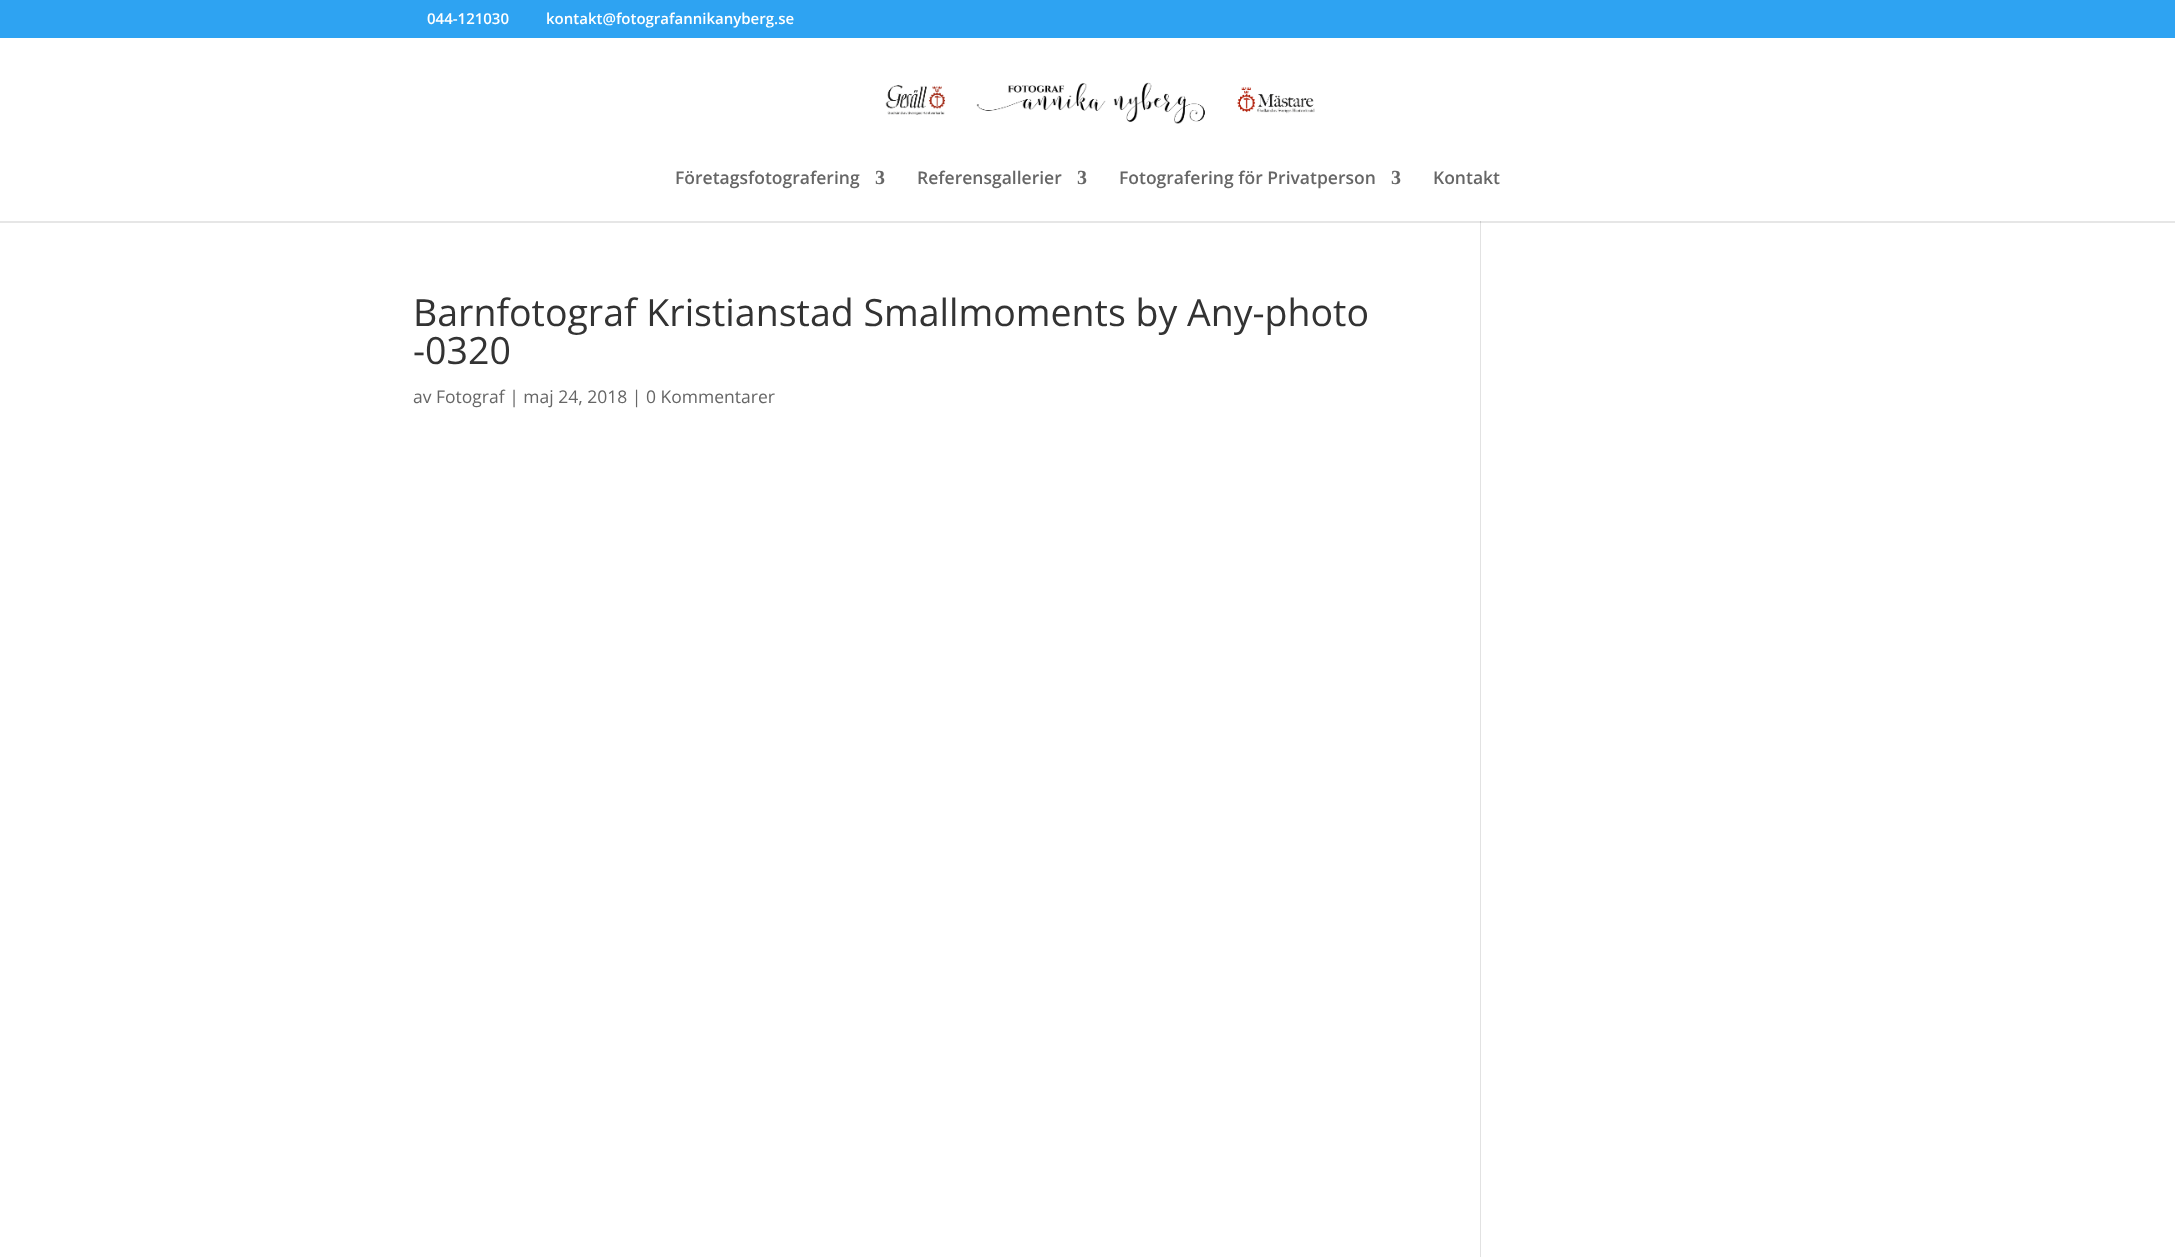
async function draw(canvas) {
  canvas.width = 2175;
  canvas.height = 1257;
  const ctx = canvas.getContext('2d');
  ctx.miterLimit = 4;
  ctx.fontKerning = 'normal';
  function label(s, x, y, font, color) {
    ctx.font = font;
    ctx.fillStyle = color;
    ctx.fillText(s, x, y);
  }
  function rect(x, y, w, h, color) {
    ctx.fillStyle = color;
    ctx.fillRect(x, y, w, h);
  }
  async function image(src, x, y, w, h) {
    const img = new Image();
    img.src = src;
    await img.decode();
    ctx.drawImage(img, x, y, w, h);
  }

  rect(0, 0, 2175, 1257, '#fff');
  rect(0, 221, 2175, 2, '#e6e6e6');
  rect(0, 0, 2175, 38, '#2ea3f2');
  label('044-121030', 427, 24, '600 15px Open Sans', '#fff');
  label('kontakt@fotografannikanyberg.se', 546, 24, '600 15px Open Sans', '#fff');
  await image('assets/img1.png', 885, 82, 430, 42);
  label('Företagsfotografering', 675, 184, '600 17.5px Open Sans', '#666');
  label('3', 875, 184, 'bold 20px Liberation Serif', '#666');
  label('Referensgallerier', 917, 184, '600 17.5px Open Sans', '#666');
  label('3', 1077, 184, 'bold 20px Liberation Serif', '#666');
  label('Fotografering för Privatperson', 1119, 184, '600 17.5px Open Sans', '#666');
  label('3', 1391, 184, 'bold 20px Liberation Serif', '#666');
  label('Kontakt', 1433, 184, '600 17.5px Open Sans', '#666');
  label('Barnfotograf Kristianstad Smallmoments by Any-photo', 413, 326, '37.5px Open Sans', '#333');
  label('-0320', 413, 364, '37.5px Open Sans', '#333');
  label('av Fotograf | maj 24, 2018 | 0 Kommentarer', 413, 403, '17.5px Open Sans', '#666');
  rect(1480, 221, 1, 1036, '#e2e2e2');
  rect(1480, 221, 1, 2, '#cbcbcb');
}

draw(document.querySelector('canvas'));
